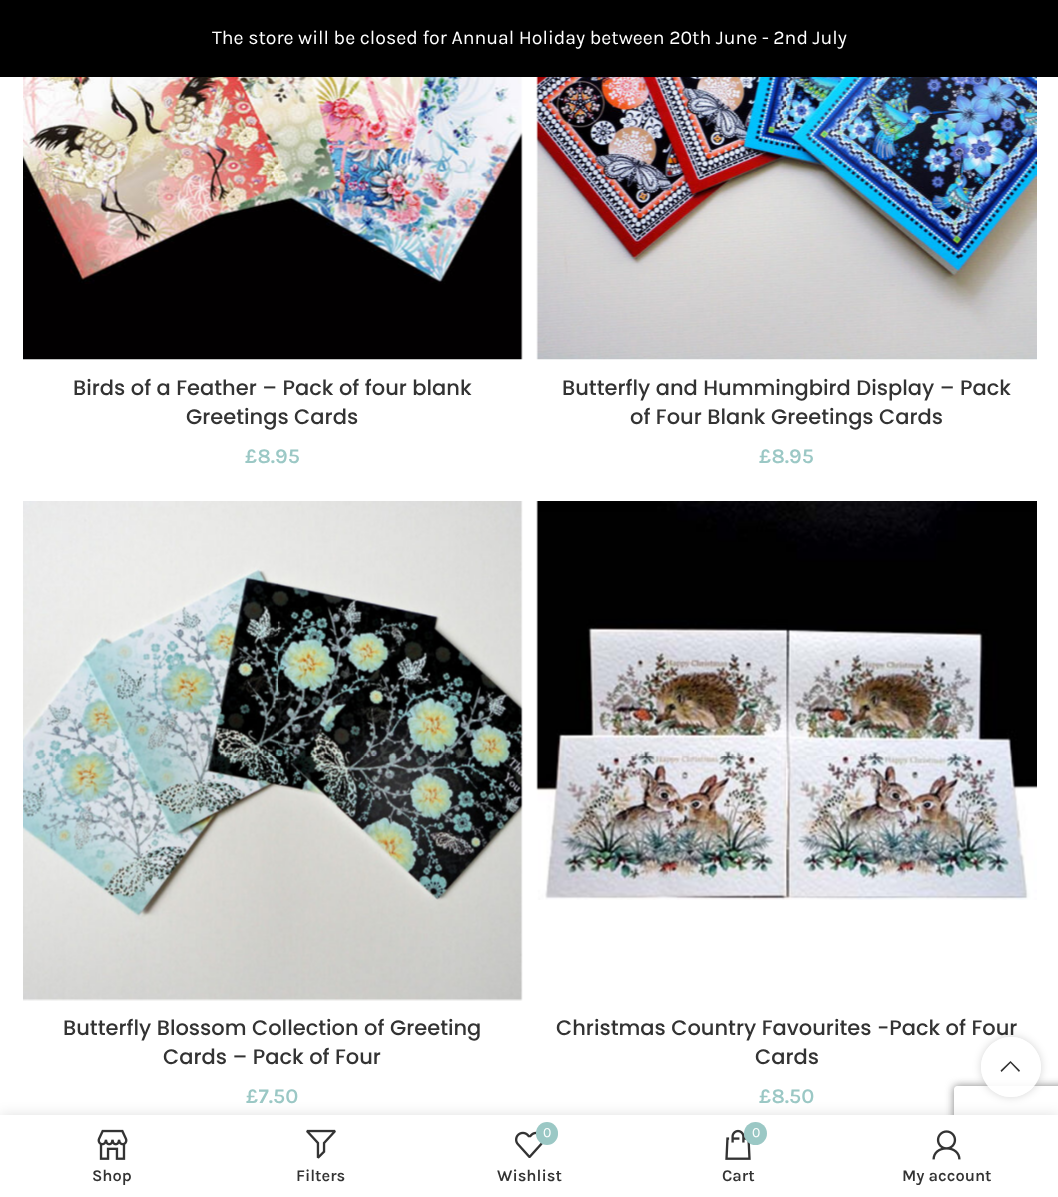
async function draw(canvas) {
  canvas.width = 1058;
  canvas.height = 1197;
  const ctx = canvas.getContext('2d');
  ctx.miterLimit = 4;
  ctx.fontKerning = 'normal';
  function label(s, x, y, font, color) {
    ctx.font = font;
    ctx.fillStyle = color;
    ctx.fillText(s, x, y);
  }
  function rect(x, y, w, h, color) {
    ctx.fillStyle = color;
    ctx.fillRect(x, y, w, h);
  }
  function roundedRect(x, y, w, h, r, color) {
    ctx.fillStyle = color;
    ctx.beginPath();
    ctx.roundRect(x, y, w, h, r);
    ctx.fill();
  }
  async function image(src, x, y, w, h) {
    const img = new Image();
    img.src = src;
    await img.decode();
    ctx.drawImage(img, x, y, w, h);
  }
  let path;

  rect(0, 0, 1058, 1197, '#fff');
  rect(0, 0, 1058, 77, '#000');
  label('The store will be closed for Annual Holiday between 20th June - 2nd July', 212, 44, '19.5px Karla', '#fff');
  await image('assets/img1.png', 23, 77, 500, 283);
  label('Birds of a Feather – Pack of four blank', 73, 395, '500 21px Poppins', '#333');
  label('Greetings Cards', 186, 424, '500 21px Poppins', '#333');
  label('£8.95', 245, 463, '600 21px Karla', '#9bc8c5');
  await image('assets/img2.png', 536, 77, 501, 283);
  label('Butterfly and Hummingbird Display – Pack', 562, 395, '500 21px Poppins', '#333');
  label('of Four Blank Greetings Cards', 630, 424, '500 21px Poppins', '#333');
  label('£8.95', 759, 463, '600 21px Karla', '#9bc8c5');
  await image('assets/img3.png', 23, 501, 500, 500);
  label('Butterfly Blossom Collection of Greeting', 63, 1035, '500 21px Poppins', '#333');
  label('Cards – Pack of Four', 163, 1064, '500 21px Poppins', '#333');
  label('£7.50', 246, 1103, '600 21px Karla', '#9bc8c5');
  await image('assets/img4.png', 536, 501, 501, 399);
  label('Christmas Country Favourites -Pack of Four', 556, 1035, '500 21px Poppins', '#333');
  label('Cards', 755, 1064, '500 21px Poppins', '#333');
  label('£8.50', 759, 1103, '600 21px Karla', '#9bc8c5');
  ctx.save();
  path = new Path2D('M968 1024H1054V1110H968ZM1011 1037C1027.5 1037 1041 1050.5 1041 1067C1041 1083.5 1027.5 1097 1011 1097C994.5 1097 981 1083.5 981 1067C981 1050.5 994.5 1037 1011 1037Z');
  ctx.clip(path, 'evenodd');
  ctx.fillStyle = '#0000002b';
  ctx.filter = 'blur(4px)';
  ctx.beginPath();
  ctx.roundRect(981, 1037, 60, 60, 30);
  ctx.fill();
  ctx.filter = 'none';
  ctx.restore();
  ctx.save();
  path = new Path2D('M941 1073H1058V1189H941ZM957 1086H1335C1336.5 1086 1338 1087.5 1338 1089V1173C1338 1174.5 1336.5 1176 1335 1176H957C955.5 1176 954 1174.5 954 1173V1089C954 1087.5 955.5 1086 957 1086Z');
  ctx.clip(path, 'evenodd');
  ctx.fillStyle = '#808080';
  ctx.filter = 'blur(4px)';
  ctx.beginPath();
  ctx.roundRect(954, 1086, 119, 90, 3);
  ctx.fill();
  ctx.filter = 'none';
  ctx.restore();
  ctx.fillStyle = '#ffffffe6';
  ctx.beginPath();
  ctx.arc(1011, 1067, 30, 0, 2 * Math.PI);
  ctx.fill();
  ctx.fillStyle = '#333';
  path = new Path2D('M1019 1072L1020 1070.5L1010.5 1061L1000.5 1070.5L1001.5 1072L1010.5 1063Z');
  ctx.fill(path);
  ctx.fillStyle = '#0000001f';
  ctx.filter = 'blur(7px)';
  ctx.beginPath();
  ctx.rect(0, 1115, 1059, 82);
  ctx.fill();
  ctx.filter = 'none';
  rect(0, 1115, 1058, 82, '#fff');
  await image('assets/img5.png', 97, 1129, 31, 31);
  label('Shop', 92, 1181, '600 16.5px Karla', '#333');
  await image('assets/img6.png', 306, 1129, 30, 30);
  label('Filters', 296, 1181, '600 16.5px Karla', '#333');
  await image('assets/img7.png', 515, 1131, 28, 27);
  roundedRect(536, 1122, 22, 23, 11, '#9bc8c5');
  label('0', 543, 1137, '14px Karla', '#fff');
  label('Wishlist', 497, 1181, '600 16.5px Karla', '#333');
  await image('assets/img8.png', 725, 1129, 26, 31);
  ctx.fillStyle = '#9bc8c5';
  ctx.beginPath();
  ctx.arc(755.5, 1133.5, 11.5, 0, 2 * Math.PI);
  ctx.fill();
  label('0', 752, 1137, '14px Karla', '#fff');
  label('Cart', 722, 1181, '600 16.5px Karla', '#333');
  await image('assets/img9.png', 932, 1130, 29, 30);
  label('My account', 902, 1181, '600 16.5px Karla', '#333');
}

draw(document.querySelector('canvas'));
